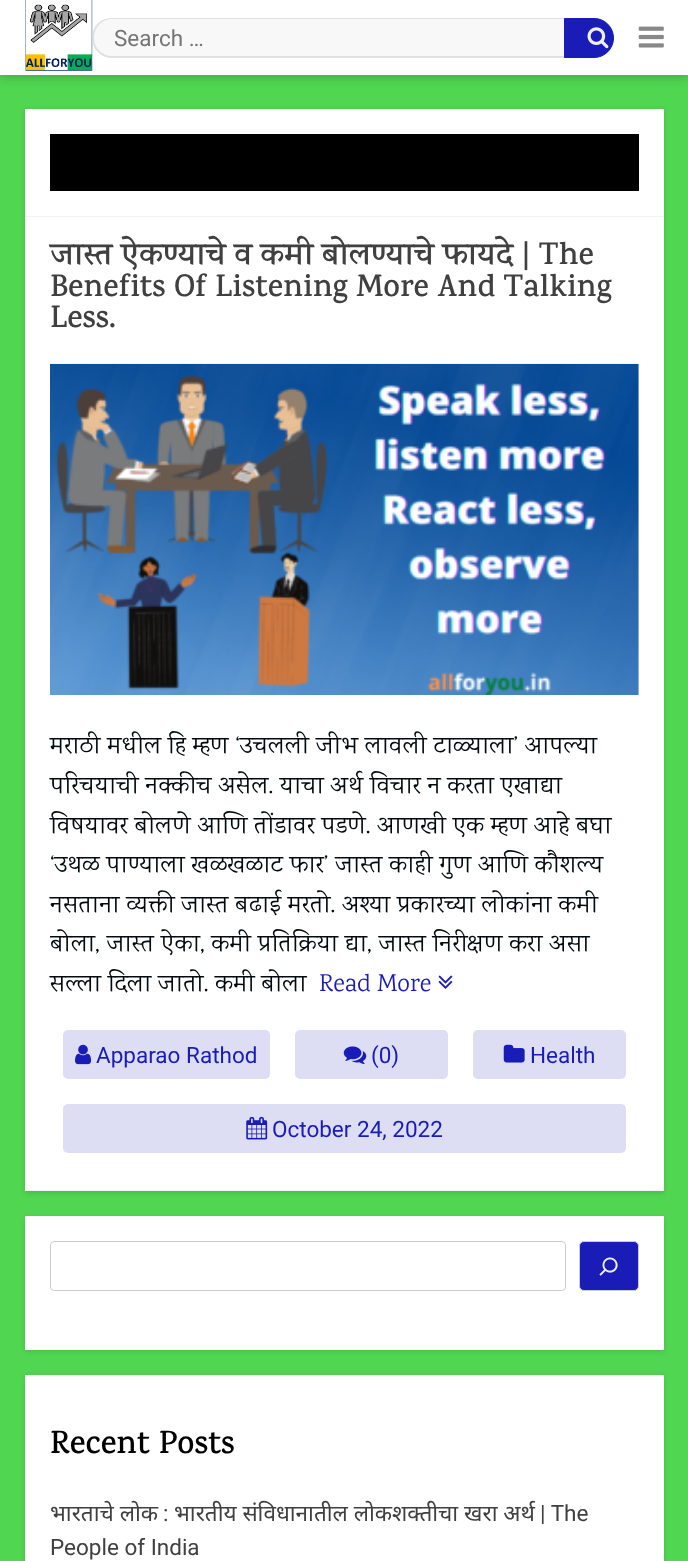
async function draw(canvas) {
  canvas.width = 688;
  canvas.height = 1561;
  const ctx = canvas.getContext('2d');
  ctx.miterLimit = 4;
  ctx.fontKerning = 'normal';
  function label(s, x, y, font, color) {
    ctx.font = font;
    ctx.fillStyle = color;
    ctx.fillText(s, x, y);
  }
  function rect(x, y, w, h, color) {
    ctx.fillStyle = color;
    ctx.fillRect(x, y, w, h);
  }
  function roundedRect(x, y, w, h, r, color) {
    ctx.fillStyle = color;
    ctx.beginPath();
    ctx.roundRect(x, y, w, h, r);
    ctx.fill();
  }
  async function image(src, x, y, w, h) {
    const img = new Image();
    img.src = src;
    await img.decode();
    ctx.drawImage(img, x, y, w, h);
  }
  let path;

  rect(0, 0, 688, 1561, '#51d651');
  ctx.fillStyle = '#12121233';
  ctx.filter = 'blur(5px)';
  ctx.beginPath();
  ctx.rect(0, 3, 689, 75);
  ctx.fill();
  ctx.filter = 'none';
  rect(0, 0, 688, 75, '#fff');
  await image('assets/img1.png', 25, 0, 68, 71);
  roundedRect(93, 18, 521, 40, 20, '#f8f8f8');
  ctx.save();
  ctx.beginPath();
  ctx.rect(93, 18, 521, 40);
  ctx.clip();
  ctx.fillStyle = '#e0e0e0';
  path = new Path2D('M112 18H594C605 18 614 26 614 38C614 49 605 58 594 58H112C101 58 92 49 92 38C92 26 101 18 112 18ZM112 19H594C605 19 614 27 614 38C614 48 605 56 594 56H112C102 56 94 48 94 38C94 27 102 19 112 19Z');
  ctx.fill(path, 'evenodd');
  ctx.restore();
  label('Search …', 114, 46, '22.5px Roboto', '#757575');
  ctx.fillStyle = '#191cb7';
  ctx.beginPath();
  ctx.roundRect(564.5, 18.5, 49, 39, [0, 19.5, 19.5, 0]);
  ctx.fill();
  ctx.strokeStyle = '#191cb7';
  ctx.stroke();
  await image('assets/img2.png', 587, 27, 22, 22);
  await image('assets/img3.png', 638, 26, 26, 22);
  ctx.fillStyle = '#12121226';
  ctx.filter = 'blur(2.5px)';
  ctx.beginPath();
  ctx.rect(25, 110, 639, 1083);
  ctx.fill();
  ctx.filter = 'none';
  rect(25, 109, 639, 1081, '#fff');
  rect(25, 216, 639, 1, '#f0f2f7');
  rect(50, 134, 589, 57, '#000');
  rect(25, 1190, 639, 1, '#f0f2f7');
  label('जास्त ऐकण्याचे व कमी बोलण्याचे फायदे | The', 50, 264, '600 31.5px Karma', '#404040');
  label('Benefits Of Listening More And Talking', 50, 296, '600 31.5px Karma', '#404040');
  label('Less.', 50, 327, '600 31.5px Karma', '#404040');
  await image('assets/img4.png', 50, 363, 589, 332);
  label('मराठी मधील हि म्हण ‘उचलली जीभ लावली टाळ्याला’ आपल्या', 50, 753, '24.75px Karma', '#00090d');
  label('परिचयाची नक्कीच असेल. याचा अर्थ विचार न करता एखाद्या', 50, 793, '24.75px Karma', '#00090d');
  label('विषयावर बोलणे आणि तोंडावर पडणे. आणखी एक म्हण आहे बघा', 50, 833, '24.75px Karma', '#00090d');
  label('‘उथळ पाण्याला खळखळाट फार’ जास्त काही गुण आणि कौशल्य', 50, 872, '24.75px Karma', '#00090d');
  label('नसताना व्यक्ती जास्त बढाई मरतो. अश्या प्रकारच्या लोकांना कमी', 50, 912, '24.75px Karma', '#00090d');
  ctx.save();
  ctx.beginPath();
  ctx.rect(50, 729, 589, 276);
  ctx.clip();
  label('बोला, जास्त ऐका, कमी प्रतिक्रिया द्या, जास्त निरीक्षण करा असा', 50, 951, '24.75px Karma', '#00090d');
  ctx.restore();
  label('सल्ला दिला जातो. कमी बोला', 50, 991, '24.75px Karma', '#00090d');
  label('Read More', 319, 991, '24.75px Karma', '#191cb7');
  await image('assets/img5.png', 438, 975, 15, 14);
  roundedRect(63, 1030, 207, 49, 5, '#ddddf4');
  await image('assets/img6.png', 75, 1044, 17, 21);
  label('Apparao Rathod', 96, 1063, '22.5px Roboto', '#191cb7');
  roundedRect(295, 1030, 153, 49, 5, '#ddddf4');
  await image('assets/img7.png', 343, 1046, 24, 19);
  label('(0)', 371, 1063, '22.5px Roboto', '#191cb7');
  roundedRect(473, 1030, 153, 49, 5, '#ddddf4');
  await image('assets/img8.png', 503, 1044, 22, 19);
  label('Health', 530, 1063, '22.5px Roboto', '#191cb7');
  roundedRect(63, 1104, 563, 49, 5, '#ddddf4');
  await image('assets/img9.png', 246, 1116, 22, 24);
  label('October 24, 2022', 272, 1137, '22.5px Roboto', '#191cb7');
  ctx.fillStyle = '#12121226';
  ctx.filter = 'blur(2.5px)';
  ctx.beginPath();
  ctx.rect(25, 1218, 639, 133);
  ctx.fill();
  ctx.filter = 'none';
  rect(25, 1216, 639, 134, '#fff');
  ctx.beginPath();
  ctx.roundRect(50.5, 1241.5, 515, 49, 3.5);
  ctx.strokeStyle = '#ccc';
  ctx.stroke();
  ctx.fillStyle = '#191cb7';
  ctx.beginPath();
  ctx.roundRect(579.5, 1241.5, 59, 49, 4.5);
  ctx.fill();
  ctx.stroke();
  await image('assets/img10.png', 599, 1257, 19, 19);
  ctx.fillStyle = '#12121226';
  ctx.filter = 'blur(2.5px)';
  ctx.beginPath();
  ctx.rect(25, 1376, 639, 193);
  ctx.fill();
  ctx.filter = 'none';
  rect(25, 1375, 639, 186, '#fff');
  label('Recent Posts', 50, 1453, '600 32.5px Karma', '#000');
  label('भारताचे लोक', 50, 1521, '22.5px Noto Sans', '#404040');
  label(':', 163, 1521, '22.5px Roboto', '#404040');
  label('भारतीय संविधानातील लोकशक्तीचा खरा अर्थ', 174, 1521, '22.5px Noto Sans', '#404040');
  label('| The', 540, 1521, '22.5px Roboto', '#404040');
  label('People of India', 50, 1555, '22.5px Roboto', '#404040');
}

draw(document.querySelector('canvas'));
